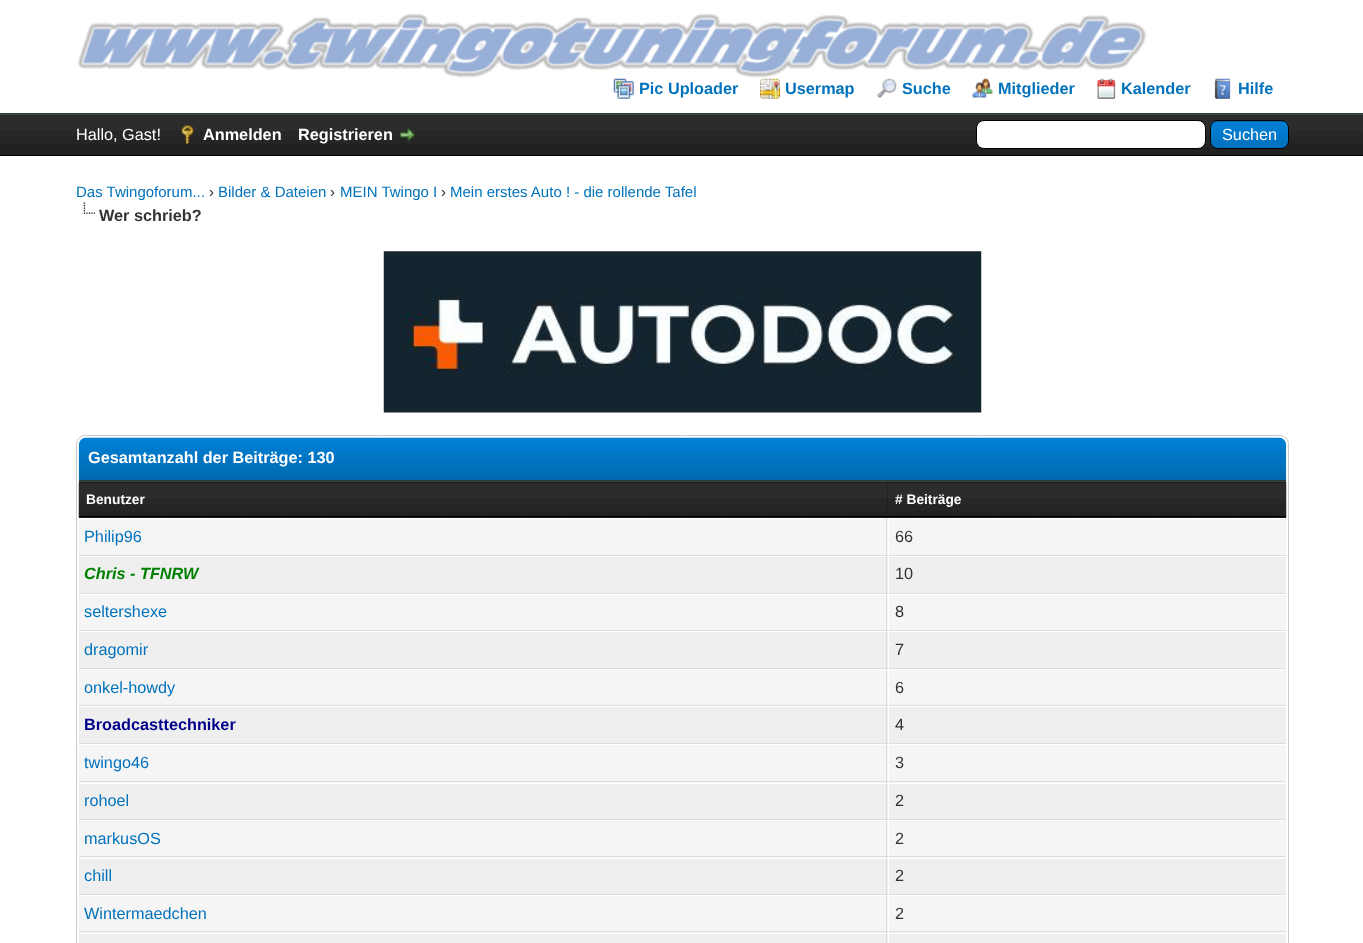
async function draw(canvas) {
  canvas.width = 1363;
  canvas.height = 943;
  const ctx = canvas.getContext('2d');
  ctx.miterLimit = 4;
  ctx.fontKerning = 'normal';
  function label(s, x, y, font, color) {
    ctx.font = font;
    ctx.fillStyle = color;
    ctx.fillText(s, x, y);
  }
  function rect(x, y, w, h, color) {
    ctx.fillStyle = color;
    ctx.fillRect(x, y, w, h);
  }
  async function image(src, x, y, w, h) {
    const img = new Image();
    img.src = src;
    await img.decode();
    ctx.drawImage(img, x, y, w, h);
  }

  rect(0, 0, 1363, 943, '#fff');
  rect(0, 113, 1363, 1, '#263c30');
  await image('assets/img1.png', 77, 13, 1070, 65);
  await image('assets/img2.png', 613, 78, 21, 21);
  label('Pic Uploader', 639, 94, 'bold 16.25px Liberation Sans', '#0072bc');
  await image('assets/img3.png', 760, 78, 20, 21);
  label('Usermap', 785, 94, 'bold 16.25px Liberation Sans', '#0072bc');
  await image('assets/img4.png', 877, 78, 20, 20);
  label('Suche', 902, 94, 'bold 16.25px Liberation Sans', '#0072bc');
  await image('assets/img5.png', 972, 78, 21, 20);
  label('Mitglieder', 998, 94, 'bold 16.25px Liberation Sans', '#0072bc');
  await image('assets/img6.png', 1097, 78, 19, 21);
  label('Kalender', 1121, 94, 'bold 16.25px Liberation Sans', '#0072bc');
  await image('assets/img7.png', 1214, 78, 17, 21);
  label('Hilfe', 1238, 94, 'bold 16.25px Liberation Sans', '#0072bc');
  await image('assets/img8.png', 0, 115, 1363, 40);
  rect(0, 114, 1363, 1, '#444');
  rect(0, 155, 1363, 1, '#000');
  label('Hallo, Gast!', 76, 140, '16.25px Liberation Sans', '#fff');
  await image('assets/img9.png', 181, 125, 13, 19);
  label('Anmelden', 203, 140, 'bold 16.25px Liberation Sans', '#fff');
  label('Registrieren', 298, 140, 'bold 16.25px Liberation Sans', '#fff');
  await image('assets/img10.png', 399, 128, 16, 14);
  ctx.beginPath();
  ctx.roundRect(976.5, 120.5, 229, 28, 7.5);
  ctx.fill();
  ctx.strokeStyle = '#000';
  ctx.stroke();
  await image('assets/img11.png', 1210, 121, 79, 28);
  ctx.beginPath();
  ctx.roundRect(1210.5, 120.5, 78, 28, 7.5);
  ctx.stroke();
  label('Suchen', 1222, 140, '16.25px Liberation Sans', '#fff');
  label('Das Twingoforum...', 76, 197, '15px Liberation Sans', '#0072bc');
  label('›', 209, 197, '15px Liberation Sans', '#333');
  label('Bilder & Dateien', 218, 197, '15px Liberation Sans', '#0072bc');
  label('›', 330, 197, '15px Liberation Sans', '#333');
  label('MEIN Twingo I', 340, 197, '15px Liberation Sans', '#0072bc');
  label('›', 441, 197, '15px Liberation Sans', '#333');
  label('Mein erstes Auto ! - die rollende Tafel', 450, 197, '15px Liberation Sans', '#0072bc');
  await image('assets/img12.png', 83, 202, 12, 12);
  label('Wer schrieb?', 99, 221, 'bold 16.25px Liberation Sans', '#333');
  await image('assets/img13.png', 383, 251, 599, 162);
  ctx.beginPath();
  ctx.roundRect(76.5, 435.5, 1212, 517, 8.5);
  ctx.strokeStyle = '#ccc';
  ctx.stroke();
  await image('assets/img14.png', 78, 437, 1209, 44);
  rect(79, 480, 1207, 1, '#263c30');
  label('Gesamtanzahl der Beiträge: 130', 88, 463, 'bold 16.25px Liberation Sans', '#fff');
  rect(79, 482, 1207, 36, '#0f0f0f');
  await image('assets/img15.png', 78, 482, 810, 36);
  rect(79, 481, 1207, 1, '#444');
  rect(79, 516, 809, 1, '#000');
  label('Benutzer', 86, 504, 'bold 13.75px Liberation Sans', '#fff');
  await image('assets/img16.png', 887, 482, 400, 36);
  rect(888, 516, 398, 1, '#000');
  label('# Beiträge', 895, 504, 'bold 13.75px Liberation Sans', '#fff');
  rect(79, 519, 809, 36, '#f5f5f5');
  rect(886, 518, 1, 38, '#ddd');
  rect(79, 555, 1207, 1, '#ddd');
  label('Philip96', 84, 542, '16.25px Liberation Sans', '#0072bc');
  rect(889, 519, 397, 36, '#f5f5f5');
  rect(888, 555, 1, 1, '#fff');
  label('66', 895, 542, '16.25px Liberation Sans', '#333');
  rect(79, 557, 809, 36, '#efefef');
  rect(886, 556, 1, 38, '#ddd');
  rect(79, 593, 1207, 1, '#ddd');
  label('Chris - TFNRW', 84, 579, 'italic bold 16.25px Liberation Sans', '#008000');
  rect(889, 557, 397, 36, '#efefef');
  rect(888, 593, 1, 1, '#fff');
  label('10', 895, 579, '16.25px Liberation Sans', '#333');
  rect(79, 595, 809, 35, '#f5f5f5');
  rect(886, 594, 1, 37, '#ddd');
  rect(79, 630, 1207, 1, '#ddd');
  label('seltershexe', 84, 617, '16.25px Liberation Sans', '#0072bc');
  rect(889, 595, 397, 35, '#f5f5f5');
  rect(888, 630, 1, 1, '#fff');
  label('8', 895, 617, '16.25px Liberation Sans', '#333');
  rect(79, 632, 809, 36, '#efefef');
  rect(886, 631, 1, 38, '#ddd');
  rect(79, 668, 1207, 1, '#ddd');
  label('dragomir', 84, 655, '16.25px Liberation Sans', '#0072bc');
  rect(889, 632, 397, 36, '#efefef');
  rect(888, 668, 1, 1, '#fff');
  label('7', 895, 655, '16.25px Liberation Sans', '#333');
  rect(79, 670, 809, 35, '#f5f5f5');
  rect(886, 669, 1, 37, '#ddd');
  rect(79, 705, 1207, 1, '#ddd');
  label('onkel-howdy', 84, 693, '16.25px Liberation Sans', '#0072bc');
  rect(889, 670, 397, 35, '#f5f5f5');
  rect(888, 705, 1, 1, '#fff');
  label('6', 895, 693, '16.25px Liberation Sans', '#333');
  rect(79, 707, 809, 36, '#efefef');
  rect(886, 706, 1, 38, '#ddd');
  rect(79, 743, 1207, 1, '#ddd');
  label('Broadcasttechniker', 84, 730, 'bold 16.25px Liberation Sans', '#00008b');
  rect(889, 707, 397, 36, '#efefef');
  rect(888, 743, 1, 1, '#fff');
  label('4', 895, 730, '16.25px Liberation Sans', '#333');
  rect(79, 745, 809, 38, '#f5f5f5');
  rect(886, 744, 1, 39, '#ddd');
  rect(79, 781, 809, 1, '#ddd');
  label('twingo46', 84, 768, '16.25px Liberation Sans', '#0072bc');
  rect(889, 745, 397, 38, '#f5f5f5');
  rect(888, 781, 398, 1, '#ddd');
  rect(888, 781, 1, 2, '#fff');
  label('3', 895, 768, '16.25px Liberation Sans', '#333');
  rect(79, 784, 809, 35, '#efefef');
  rect(886, 783, 1, 37, '#ddd');
  rect(79, 819, 1207, 1, '#ddd');
  label('rohoel', 84, 806, '16.25px Liberation Sans', '#0072bc');
  rect(889, 784, 397, 35, '#efefef');
  rect(888, 819, 1, 1, '#fff');
  label('2', 895, 806, '16.25px Liberation Sans', '#333');
  rect(79, 821, 809, 37, '#f5f5f5');
  rect(886, 820, 1, 38, '#ddd');
  rect(79, 856, 809, 1, '#ddd');
  label('markusOS', 84, 844, '16.25px Liberation Sans', '#0072bc');
  rect(889, 821, 397, 37, '#f5f5f5');
  rect(888, 856, 398, 1, '#ddd');
  rect(888, 856, 1, 2, '#fff');
  label('2', 895, 844, '16.25px Liberation Sans', '#333');
  rect(79, 859, 809, 35, '#efefef');
  rect(886, 858, 1, 37, '#ddd');
  rect(79, 894, 1207, 1, '#ddd');
  label('chill', 84, 881, '16.25px Liberation Sans', '#0072bc');
  rect(889, 859, 397, 35, '#efefef');
  rect(888, 894, 1, 1, '#fff');
  label('2', 895, 881, '16.25px Liberation Sans', '#333');
  rect(79, 896, 809, 37, '#f5f5f5');
  rect(886, 895, 1, 38, '#ddd');
  rect(79, 931, 809, 1, '#ddd');
  label('Wintermaedchen', 84, 919, '16.25px Liberation Sans', '#0072bc');
  rect(889, 896, 397, 37, '#f5f5f5');
  rect(888, 931, 398, 1, '#ddd');
  rect(888, 931, 1, 2, '#fff');
  label('2', 895, 919, '16.25px Liberation Sans', '#333');
  rect(79, 934, 809, 9, '#efefef');
  rect(886, 933, 1, 10, '#ddd');
  rect(889, 934, 397, 9, '#efefef');
}

draw(document.querySelector('canvas'));
